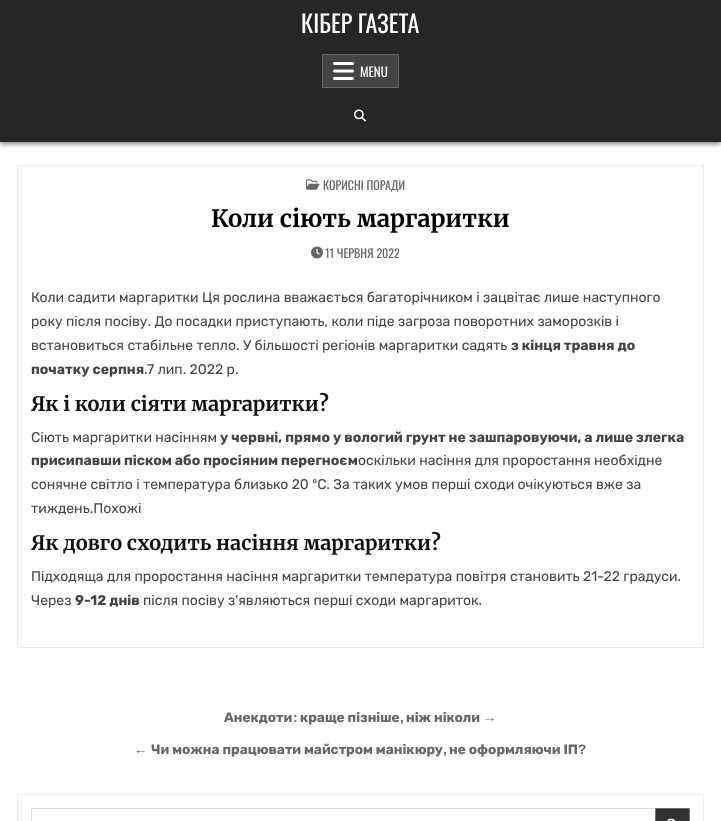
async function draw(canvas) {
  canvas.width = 721;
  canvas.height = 821;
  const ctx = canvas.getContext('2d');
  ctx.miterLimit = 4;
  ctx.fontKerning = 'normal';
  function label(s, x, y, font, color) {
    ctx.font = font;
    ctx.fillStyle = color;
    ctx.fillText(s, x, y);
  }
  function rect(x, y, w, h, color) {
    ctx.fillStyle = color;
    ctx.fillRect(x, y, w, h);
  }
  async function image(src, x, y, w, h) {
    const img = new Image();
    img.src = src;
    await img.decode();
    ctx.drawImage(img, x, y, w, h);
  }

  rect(0, 0, 721, 821, '#fff');
  ctx.fillStyle = '#00000080';
  ctx.filter = 'blur(2.5px)';
  ctx.beginPath();
  ctx.rect(0, 2, 721, 142);
  ctx.fill();
  ctx.filter = 'none';
  rect(0, 0, 721, 142, '#262626');
  label('КІБЕР ГАЗЕТА', 301, 33, '24px Oswald', '#fff');
  ctx.fillStyle = '#444';
  ctx.beginPath();
  ctx.rect(322.5, 54.5, 76, 33);
  ctx.fill();
  ctx.strokeStyle = '#666';
  ctx.stroke();
  await image('assets/img1.png', 333, 62, 21, 18);
  label('MENU', 360, 77, '13px Oswald', '#fff');
  await image('assets/img2.png', 354, 109, 12, 13);
  ctx.strokeStyle = '#ebebeb';
  ctx.strokeRect(17.5, 165.5, 686, 482);
  await image('assets/img3.png', 306, 179, 14, 11);
  label('КОРИСНІ ПОРАДИ', 323, 190, '12px Oswald', '#666');
  label('Коли сіють маргаритки', 211, 227, 'bold 24px Merriweather', '#000');
  await image('assets/img4.png', 311, 246, 12, 13);
  label('11 ЧЕРВНЯ 2022', 325, 258, '12px Oswald', '#666');
  label('Коли садити маргаритки Ця рослина вважається багаторічником і зацвітає лише наступного', 31, 302, '14px Rubik', '#444');
  label('року після посіву. До посадки приступають, коли піде загроза поворотних заморозків і', 31, 326, '14px Rubik', '#444');
  label('встановиться стабільне тепло. У більшості регіонів маргаритки садять', 31, 350, '14px Rubik', '#444');
  label('з кінця травня до', 511, 350, 'bold 14px Rubik', '#444');
  label('початку серпня', 31, 374, 'bold 14px Rubik', '#444');
  label('.7 лип. 2022 р.', 144, 374, '14px Rubik', '#444');
  label('Як і коли сіяти маргаритки?', 31, 411, 'bold 20px Merriweather', '#111');
  label('Сіють маргаритки насінням', 31, 442, '14px Rubik', '#444');
  label('у червні, прямо у вологий грунт не зашпаровуючи, а лише злегка', 220, 442, 'bold 14px Rubik', '#444');
  label('присипавши піском або просіяним перегноєм', 31, 465, 'bold 14px Rubik', '#444');
  label('оскільки насіння для проростання необхідне', 358, 465, '14px Rubik', '#444');
  label('сонячне світло і температура близько 20 ºC. За таких умов перші сходи очікуються вже за', 31, 489, '14px Rubik', '#444');
  label('тиждень.Похожі', 31, 513, '14px Rubik', '#444');
  label('Як довго сходить насіння маргаритки?', 31, 550, 'bold 20px Merriweather', '#111');
  label('Підходяща для проростання насіння маргаритки температура повітря становить 21-22 градуси.', 31, 581, '14px Rubik', '#444');
  label('Через', 31, 605, '14px Rubik', '#444');
  label('9-12 днів', 75, 605, 'bold 14px Rubik', '#444');
  label('після посіву з\'являються перші сходи маргариток.', 143, 605, '14px Rubik', '#444');
  label('Анекдоти', 224, 722, 'bold 13.65px Rubik', '#666');
  label(':', 293, 722, 'bold 13.65px Liberation Sans', '#666');
  label('краще пізніше', 300, 722, 'bold 13.65px Rubik', '#666');
  label(',', 400, 722, 'bold 13.65px Liberation Sans', '#666');
  label('ніж ніколи', 406, 722, 'bold 13.65px Rubik', '#666');
  label('→', 483, 722, 'bold 13.65px Liberation Sans', '#666');
  label('←', 134, 754, 'bold 13.65px Liberation Sans', '#666');
  label('Чи можна працювати майстром манікюру', 151, 754, 'bold 13.65px Rubik', '#666');
  label(',', 443, 754, 'bold 13.65px Liberation Sans', '#666');
  label('не оформляючи ІП', 449, 754, 'bold 13.65px Rubik', '#666');
  label('?', 578, 754, 'bold 13.65px Liberation Sans', '#666');
  ctx.strokeRect(17.5, 794.5, 686, 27);
  ctx.strokeStyle = '#ddd';
  ctx.strokeRect(31.5, 808.5, 658, 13);
  ctx.fillStyle = '#333';
  ctx.beginPath();
  ctx.rect(655.5, 808.5, 34, 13);
  ctx.fill();
  ctx.strokeStyle = '#6f6f6f';
  ctx.stroke();
  await image('assets/img5.png', 667, 818, 9, 3);
}

draw(document.querySelector('canvas'));
